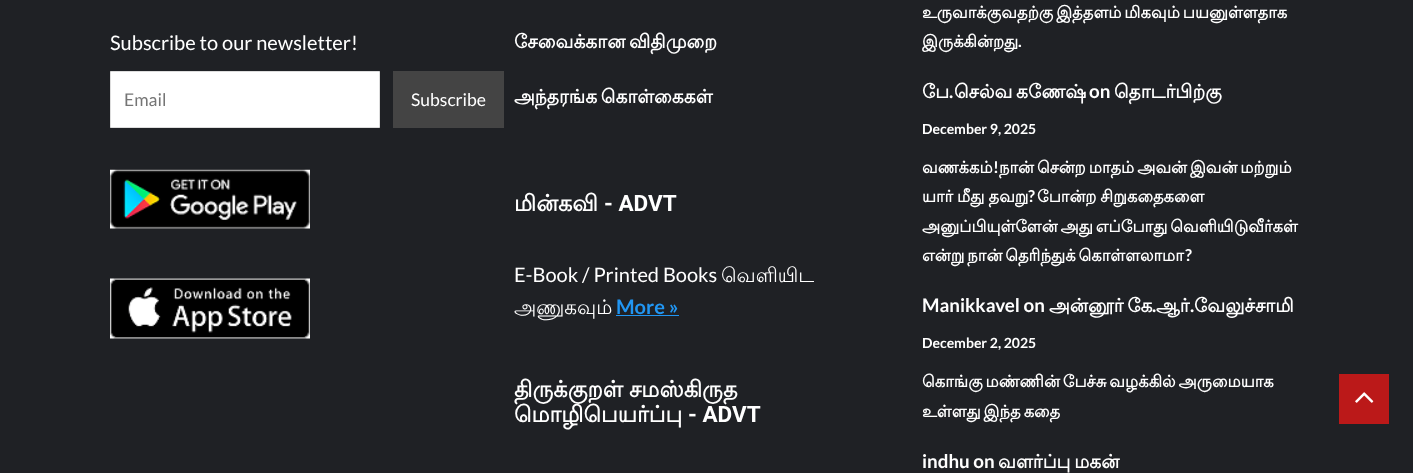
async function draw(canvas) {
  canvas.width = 1413;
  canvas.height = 473;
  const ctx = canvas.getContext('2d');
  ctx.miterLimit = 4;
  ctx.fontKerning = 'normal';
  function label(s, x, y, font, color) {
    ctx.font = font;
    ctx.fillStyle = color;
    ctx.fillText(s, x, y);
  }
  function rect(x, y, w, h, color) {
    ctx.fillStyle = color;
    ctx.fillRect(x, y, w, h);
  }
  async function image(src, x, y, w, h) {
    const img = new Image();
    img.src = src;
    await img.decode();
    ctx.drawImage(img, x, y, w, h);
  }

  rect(0, 0, 1413, 473, '#1f2125');
  label('Subscribe to our newsletter!', 110, 50, '20px Lato', '#fff');
  ctx.beginPath();
  ctx.rect(110.5, 71.5, 269, 56);
  ctx.fill();
  ctx.strokeStyle = '#ddd';
  ctx.stroke();
  label('Email', 124, 106, '17.5px Lato', '#757575');
  rect(393, 71, 111, 57, '#444');
  label('Subscribe', 411, 106, '17.5px Lato', '#fff');
  await image('assets/img1.png', 110, 169, 200, 60);
  await image('assets/img2.png', 110, 278, 200, 61);
  ctx.wordSpacing = '-2px';
  label('சேவைக்கான விதிமுறை', 514, 48, 'bold 18.75px Lohit Tamil', '#fff');
  label('அந்தரங்க கொள்கைகள்', 514, 103, 'bold 18.75px Lohit Tamil', '#fff');
  ctx.wordSpacing = '0px';
  label('மின்கவி', 514, 211, 'bold 22.5px Lohit Tamil', '#fff');
  label('- ADVT', 604, 211, 'bold 22.5px Roboto', '#fff');
  label('E-Book / Printed Books', 514, 282, '20px Lato', '#fff');
  label('வெளியிட', 721, 282, '20px Lohit Tamil', '#fff');
  label('அணுகவும்', 514, 314, '20px Lohit Tamil', '#fff');
  label('More »', 616, 314, 'bold 20px Lato', '#2196f3');
  rect(616, 315, 63, 1, '#2196f3');
  ctx.wordSpacing = '-1px';
  label('திருக்குறள் சமஸ்கிருத', 514, 397, 'bold 22.5px Lohit Tamil', '#fff');
  ctx.wordSpacing = '0px';
  label('மொழிபெயர்ப்பு', 514, 422, 'bold 22.5px Lohit Tamil', '#fff');
  label('- ADVT', 688, 422, 'bold 22.5px Roboto', '#fff');
  ctx.wordSpacing = '-2px';
  label('உருவாக்குவதற்கு இத்தளம் மிகவும் பயனுள்ளதாக', 922, 18, 'bold 16.4px Lohit Tamil', '#fff');
  ctx.wordSpacing = '0px';
  label('இருக்கின்றது', 922, 47, 'bold 16.4px Lohit Tamil', '#fff');
  label('.', 1018, 47, 'bold 16.4px Lato', '#fff');
  label('பே', 922, 98, 'bold 18.75px Lohit Tamil', '#fff');
  label('.', 949, 98, 'bold 18.75px Lato', '#fff');
  ctx.wordSpacing = '-2px';
  label('செல்வ கணேஷ்', 954, 98, 'bold 18.75px Lohit Tamil', '#fff');
  ctx.wordSpacing = '0px';
  label('on', 1089, 98, 'bold 18.75px Lato', '#fff');
  label('தொடர்பிற்கு', 1114, 98, 'bold 18.75px Lohit Tamil', '#fff');
  label('December 9, 2025', 922, 134, 'bold 14px Lato', '#fff');
  label('வணக்கம்', 922, 173, 'bold 16.4px Lohit Tamil', '#fff');
  label('!', 993, 173, 'bold 16.4px Lato', '#fff');
  ctx.wordSpacing = '-2px';
  label('நான் சென்ற மாதம் அவன் இவன் மற்றும்', 999, 173, 'bold 16.4px Lohit Tamil', '#fff');
  ctx.wordSpacing = '-1px';
  label('யார் மீது தவறு', 922, 202, 'bold 16.4px Lohit Tamil', '#fff');
  ctx.wordSpacing = '0px';
  label('?', 1028, 202, 'bold 16.4px Lato', '#fff');
  ctx.wordSpacing = '-1px';
  label('போன்ற சிறுகதைகளை', 1037, 202, 'bold 16.4px Lohit Tamil', '#fff');
  ctx.wordSpacing = '-2px';
  label('அனுப்பியுள்ளேன் அது எப்போது வெளியிடுவீர்கள்', 922, 232, 'bold 16.4px Lohit Tamil', '#fff');
  label('என்று நான் தெரிந்துக் கொள்ளலாமா', 922, 261, 'bold 16.4px Lohit Tamil', '#fff');
  ctx.wordSpacing = '0px';
  label('?', 1185, 261, 'bold 16.4px Lato', '#fff');
  label('Manikkavel on', 922, 312, 'bold 18.75px Lato', '#fff');
  ctx.wordSpacing = '-2px';
  label('அன்னூர் கே', 1049, 312, 'bold 18.75px Lohit Tamil', '#fff');
  ctx.wordSpacing = '0px';
  label('.', 1152, 312, 'bold 18.75px Lato', '#fff');
  label('ஆர்', 1156, 312, 'bold 18.75px Lohit Tamil', '#fff');
  label('.', 1190, 312, 'bold 18.75px Lato', '#fff');
  label('வேலுச்சாமி', 1194, 312, 'bold 18.75px Lohit Tamil', '#fff');
  label('December 2, 2025', 922, 348, 'bold 14px Lato', '#fff');
  ctx.wordSpacing = '-2px';
  label('கொங்கு மண்ணின் பேச்சு வழக்கில் அருமையாக', 922, 387, 'bold 16.4px Lohit Tamil', '#fff');
  label('உள்ளது இந்த கதை', 922, 417, 'bold 16.4px Lohit Tamil', '#fff');
  ctx.wordSpacing = '0px';
  label('indhu on', 922, 468, 'bold 18.75px Lato', '#fff');
  ctx.wordSpacing = '-2px';
  label('வளர்ப்பு மகன்', 998, 468, 'bold 18.75px Lohit Tamil', '#fff');
  rect(1339, 374, 50, 50, '#bb1919');
  await image('assets/img3.png', 1355, 392, 19, 11);
}

draw(document.querySelector('canvas'));
